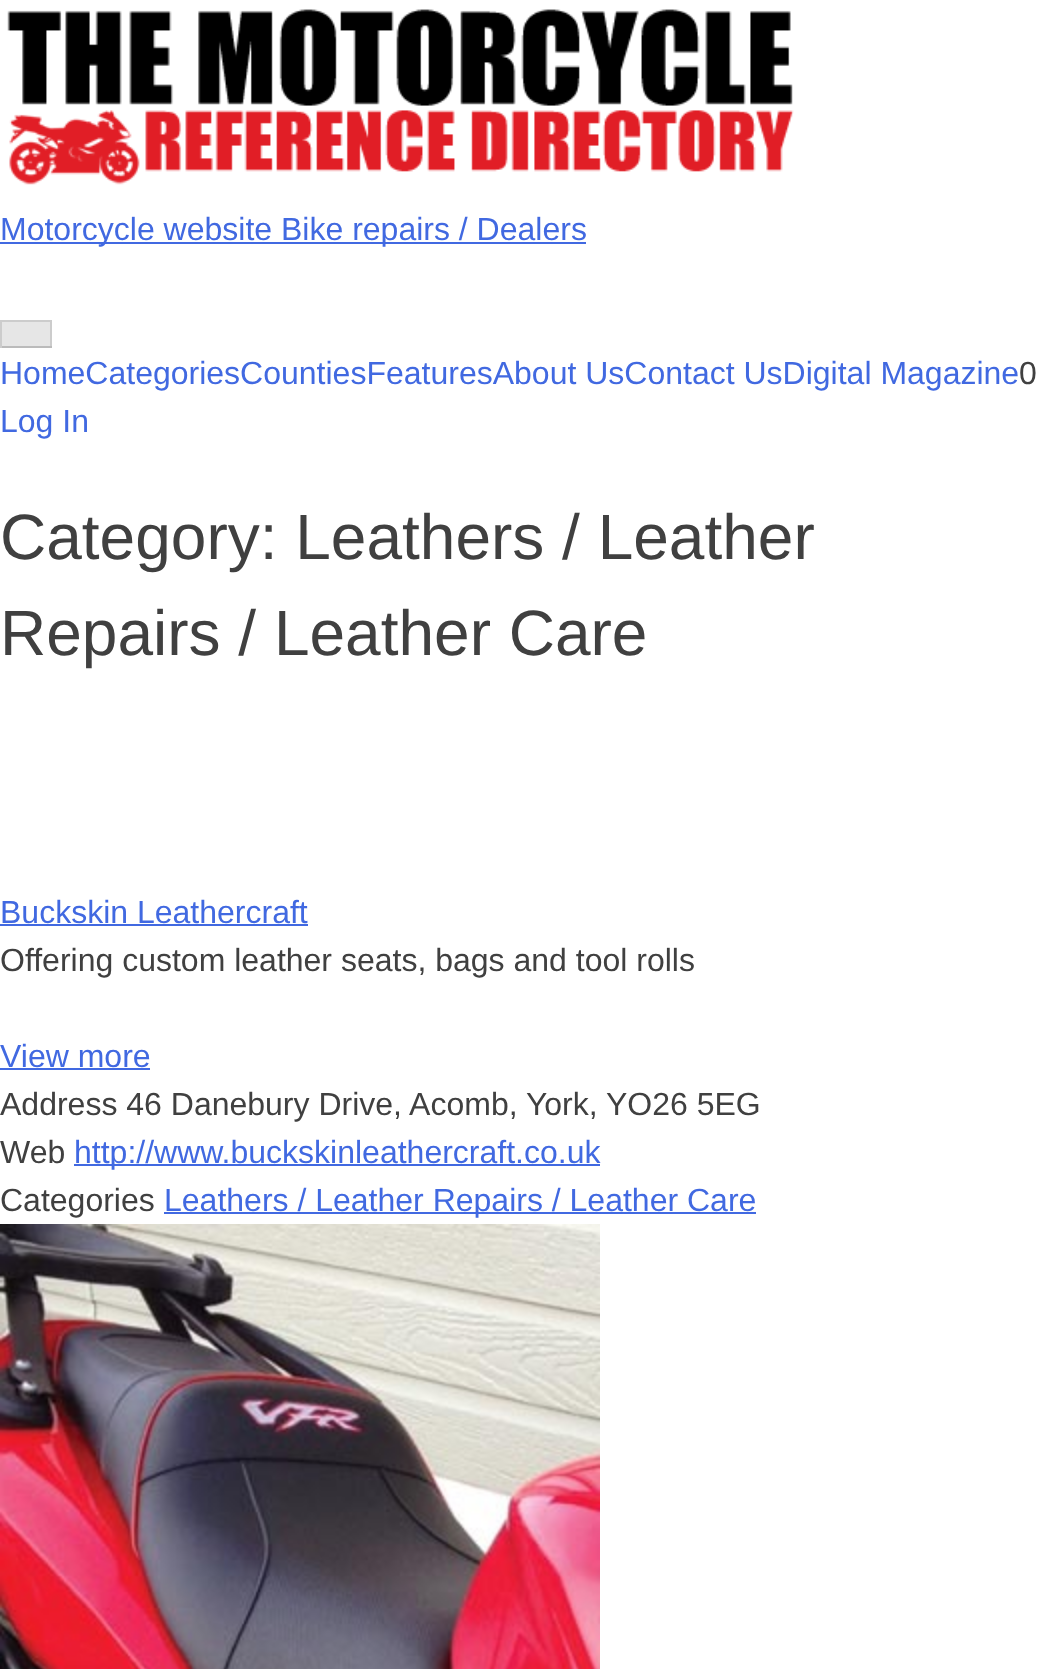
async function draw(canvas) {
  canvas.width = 1051;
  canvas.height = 1669;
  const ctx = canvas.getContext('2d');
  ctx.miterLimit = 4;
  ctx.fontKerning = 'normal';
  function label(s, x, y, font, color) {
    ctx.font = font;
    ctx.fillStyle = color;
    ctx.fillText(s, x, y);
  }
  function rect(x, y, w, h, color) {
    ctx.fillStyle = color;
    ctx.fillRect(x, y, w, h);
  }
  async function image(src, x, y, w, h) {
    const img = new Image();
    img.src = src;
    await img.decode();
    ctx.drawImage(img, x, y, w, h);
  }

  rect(0, 0, 1051, 1669, '#fff');
  await image('assets/img1.png', 7, 9, 787, 176);
  rect(0, 242, 586, 2, '#4169e1');
  label('Motorcycle website Bike repairs / Dealers', 0, 240, '32px Liberation Sans', '#4169e1');
  rect(2, 322, 48, 24, '#e6e6e6');
  rect(0, 320, 52, 2, '#ccc');
  rect(50, 320, 2, 28, '#ccc');
  rect(0, 346, 52, 2, '#bbb');
  rect(0, 320, 2, 28, '#ccc');
  label('HomeCategoriesCountiesFeaturesAbout UsContact UsDigital Magazine', 0, 384, '32px Liberation Sans', '#4169e1');
  label('Log In', 0, 432, '32px Liberation Sans', '#4169e1');
  label('0', 1019, 384, '32px Liberation Sans', '#404040');
  label('Category: Leathers / Leather', 0, 559, '64px Liberation Sans', '#404040');
  label('Repairs / Leather Care', 0, 655, '64px Liberation Sans', '#404040');
  label('Buckskin Leathercraft', 0, 923, '32px Liberation Sans', '#4169e1');
  rect(0, 924, 308, 2, '#4169e1');
  label('Offering custom leather seats, bags and tool rolls', 0, 971, '32px Liberation Sans', '#404040');
  label('View more', 0, 1067, '32px Liberation Sans', '#4169e1');
  rect(0, 1068, 150, 2, '#4169e1');
  label('Address 46 Danebury Drive, Acomb, York, YO26 5EG', 0, 1115, '32px Liberation Sans', '#404040');
  label('Web', 0, 1163, '32px Liberation Sans', '#404040');
  rect(74, 1164, 526, 2, '#4169e1');
  label('http://www.buckskinleathercraft.co.uk', 74, 1163, '32px Liberation Sans', '#4169e1');
  label('Categories', 0, 1211, '32px Liberation Sans', '#404040');
  rect(164, 1212, 592, 2, '#4169e1');
  label('Leathers / Leather Repairs / Leather Care', 164, 1211, '32px Liberation Sans', '#4169e1');
  await image('assets/img2.png', 0, 1224, 600, 445);
}

draw(document.querySelector('canvas'));
